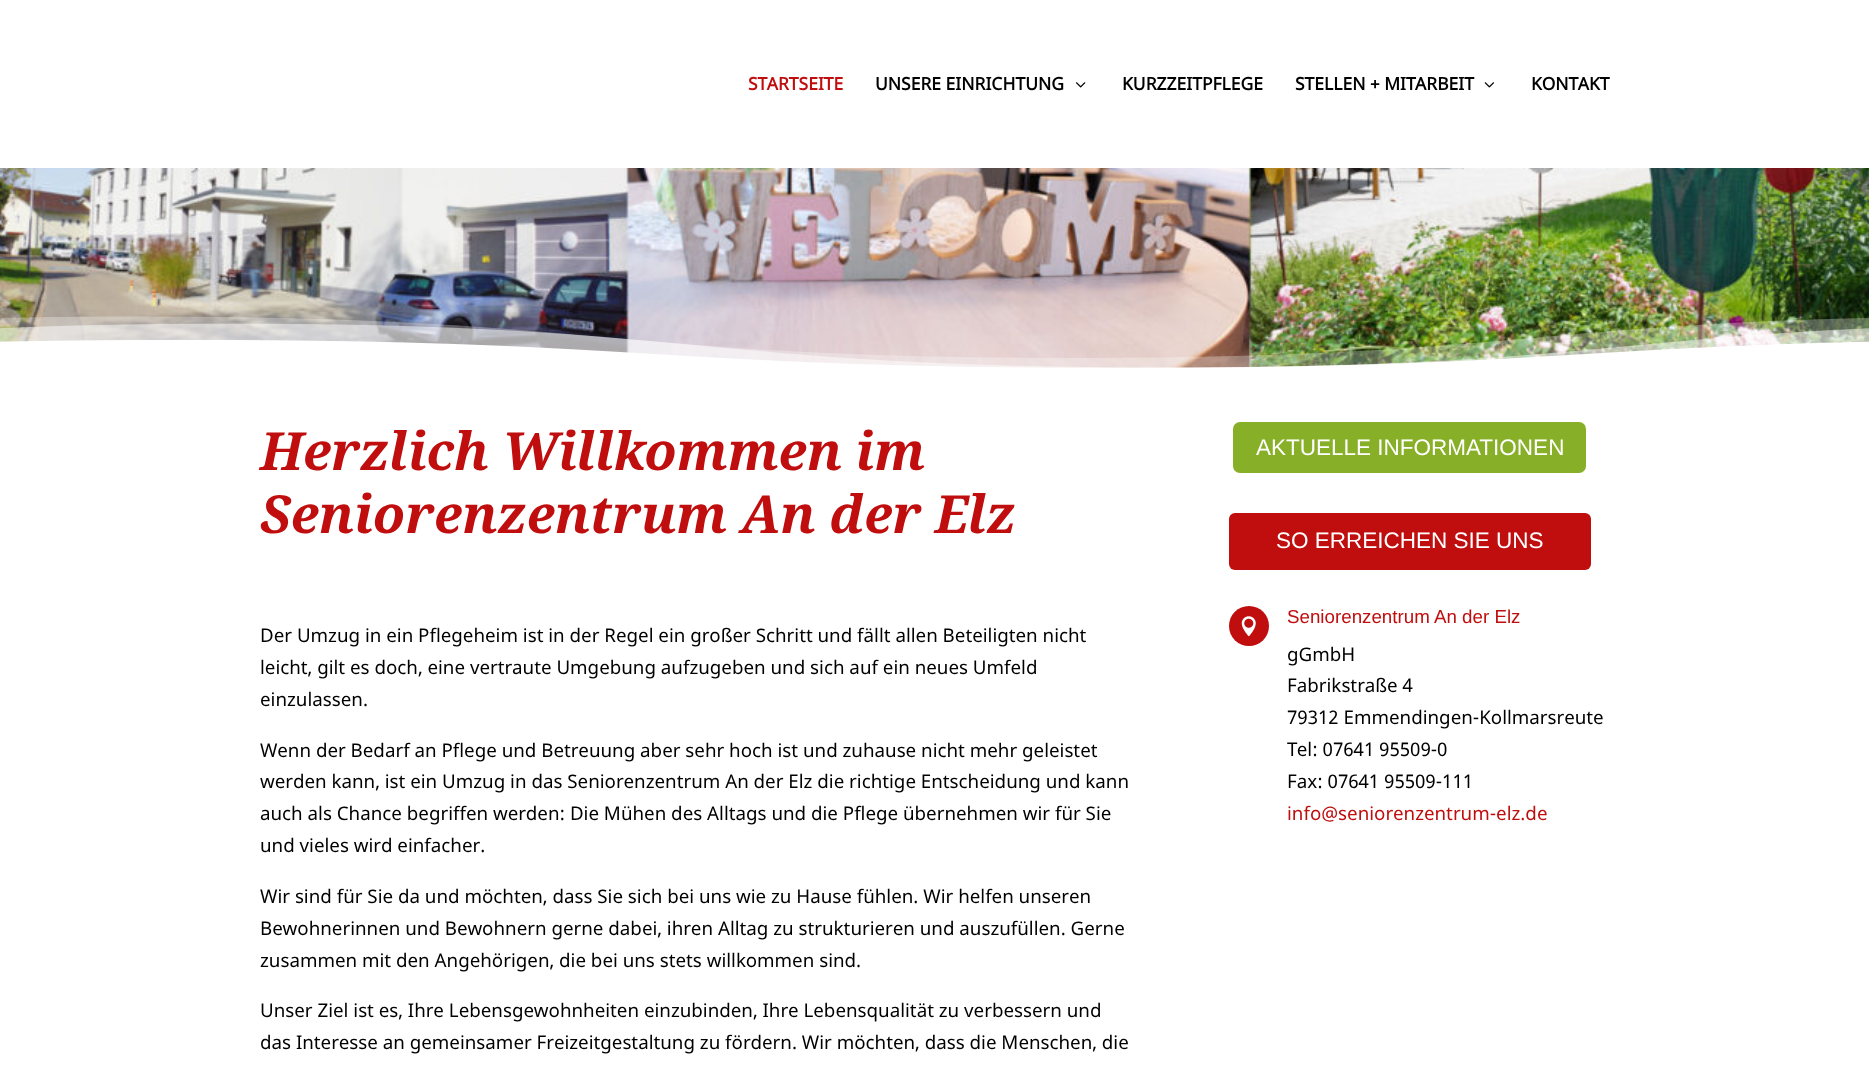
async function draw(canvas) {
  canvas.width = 1869;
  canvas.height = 1069;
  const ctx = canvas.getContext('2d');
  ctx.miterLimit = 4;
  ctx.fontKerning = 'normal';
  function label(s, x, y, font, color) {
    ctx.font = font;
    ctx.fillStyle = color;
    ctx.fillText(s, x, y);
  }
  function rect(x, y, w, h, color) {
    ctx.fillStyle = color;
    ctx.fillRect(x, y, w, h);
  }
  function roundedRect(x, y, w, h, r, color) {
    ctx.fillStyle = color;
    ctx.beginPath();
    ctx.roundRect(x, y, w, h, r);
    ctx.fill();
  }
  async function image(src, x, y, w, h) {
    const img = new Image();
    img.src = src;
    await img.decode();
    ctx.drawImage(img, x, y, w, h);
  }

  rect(0, 0, 1869, 1069, '#fff');
  label('STARTSEITE', 748, 90, 'bold 17.5px Noto Sans', '#c00d0d');
  label('UNSERE EINRICHTUNG', 875, 90, 'bold 17.5px Noto Sans', '#000');
  await image('assets/img1.png', 1076, 82, 10, 6);
  label('KURZZEITPFLEGE', 1122, 90, 'bold 17.5px Noto Sans', '#000');
  label('STELLEN + MITARBEIT', 1295, 90, 'bold 17.5px Noto Sans', '#000');
  await image('assets/img2.png', 1484, 82, 10, 6);
  label('KONTAKT', 1531, 90, 'bold 17.5px Noto Sans', '#000');
  await image('assets/img3.png', 0, 168, 1869, 200);
  await image('assets/img4.png', 0, 316, 1869, 69);
  label('Herzlich Willkommen im', 260, 470, 'italic bold 52.5px Noto Serif', '#c00d0d');
  label('Seniorenzentrum An der Elz', 260, 533, 'italic bold 52.5px Noto Serif', '#c00d0d');
  label('Der Umzug in ein Pflegeheim ist in der Regel ein großer Schritt und fällt allen Beteiligten nicht', 260, 642, '18.75px Noto Sans', '#000');
  label('leicht, gilt es doch, eine vertraute Umgebung aufzugeben und sich auf ein neues Umfeld', 260, 674, '18.75px Noto Sans', '#000');
  label('einzulassen.', 260, 706, '18.75px Noto Sans', '#000');
  label('Wenn der Bedarf an Pflege und Betreuung aber sehr hoch ist und zuhause nicht mehr geleistet', 260, 757, '18.75px Noto Sans', '#000');
  label('werden kann, ist ein Umzug in das Seniorenzentrum An der Elz die richtige Entscheidung und kann', 260, 788, '18.75px Noto Sans', '#000');
  label('auch als Chance begriffen werden: Die Mühen des Alltags und die Pflege übernehmen wir für Sie', 260, 820, '18.75px Noto Sans', '#000');
  label('und vieles wird einfacher.', 260, 852, '18.75px Noto Sans', '#000');
  label('Wir sind für Sie da und möchten, dass Sie sich bei uns wie zu Hause fühlen. Wir helfen unseren', 260, 903, '18.75px Noto Sans', '#000');
  label('Bewohnerinnen und Bewohnern gerne dabei, ihren Alltag zu strukturieren und auszufüllen. Gerne', 260, 935, '18.75px Noto Sans', '#000');
  label('zusammen mit den Angehörigen, die bei uns stets willkommen sind.', 260, 967, '18.75px Noto Sans', '#000');
  label('Unser Ziel ist es, Ihre Lebensgewohnheiten einzubinden, Ihre Lebensqualität zu verbessern und', 260, 1017, '18.75px Noto Sans', '#000');
  label('das Interesse an gemeinsamer Freizeitgestaltung zu fördern. Wir möchten, dass die Menschen, die', 260, 1049, '18.75px Noto Sans', '#000');
  ctx.fillStyle = '#87af27';
  ctx.beginPath();
  ctx.roundRect(1231.5, 420.5, 356, 54, 8.5);
  ctx.fill();
  ctx.strokeStyle = '#fff';
  ctx.lineWidth = 3;
  ctx.stroke();
  label('AKTUELLE INFORMATIONEN', 1256, 455, '22.5px Liberation Sans', '#fff');
  roundedRect(1229, 513, 362, 57, 6, '#c00d0d');
  label('SO ERREICHEN SIE UNS', 1276, 548, '22.5px Liberation Sans', '#fff');
  ctx.fillStyle = '#c00d0d';
  ctx.beginPath();
  ctx.arc(1249, 626, 20, 0, 2 * Math.PI);
  ctx.fill();
  await image('assets/img5.png', 1241, 616, 15, 21);
  label('Seniorenzentrum An der Elz', 1287, 623, '18.75px Liberation Sans', '#c00d0d');
  label('gGmbH', 1287, 661, '18.75px Noto Sans', '#000');
  label('Fabrikstraße 4', 1287, 692, '18.75px Noto Sans', '#000');
  label('79312 Emmendingen-Kollmarsreute', 1287, 724, '18.75px Noto Sans', '#000');
  label('Tel: 07641 95509-0', 1287, 756, '18.75px Noto Sans', '#000');
  label('Fax: 07641 95509-111', 1287, 788, '18.75px Noto Sans', '#000');
  label('info@seniorenzentrum-elz.de', 1287, 820, '18.75px Noto Sans', '#c00d0d');
}

draw(document.querySelector('canvas'));
